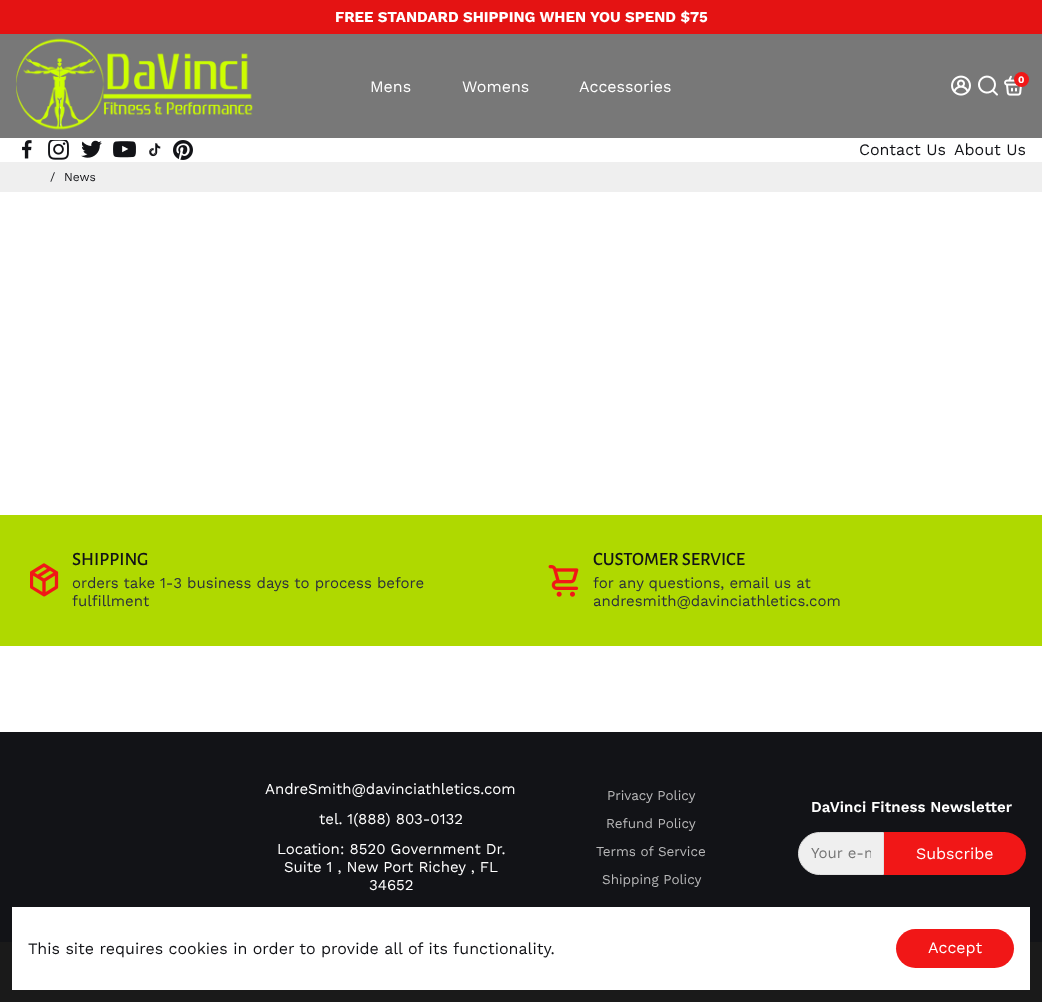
async function draw(canvas) {
  canvas.width = 1042;
  canvas.height = 1002;
  const ctx = canvas.getContext('2d');
  ctx.miterLimit = 4;
  ctx.fontKerning = 'normal';
  function label(s, x, y, font, color) {
    ctx.font = font;
    ctx.fillStyle = color;
    ctx.fillText(s, x, y);
  }
  function rect(x, y, w, h, color) {
    ctx.fillStyle = color;
    ctx.fillRect(x, y, w, h);
  }
  function roundedRect(x, y, w, h, r, color) {
    ctx.fillStyle = color;
    ctx.beginPath();
    ctx.roundRect(x, y, w, h, r);
    ctx.fill();
  }
  async function image(src, x, y, w, h) {
    const img = new Image();
    img.src = src;
    await img.decode();
    ctx.drawImage(img, x, y, w, h);
  }

  rect(0, 0, 1042, 1002, '#fff');
  rect(0, 0, 1042, 34, '#e41313');
  label('FREE STANDARD SHIPPING WHEN YOU SPEND $75', 335, 22, 'bold 15px Work Sans', '#fff');
  rect(0, 34, 1042, 104, '#787878');
  await image('assets/img1.png', 16, 38, 237, 92);
  label('Mens', 370, 92, '16px Work Sans', '#fff');
  label('Womens', 462, 92, '16px Work Sans', '#fff');
  label('Accessories', 579, 92, '16px Work Sans', '#fff');
  await image('assets/img2.png', 951, 75, 20, 21);
  await image('assets/img3.png', 978, 75, 20, 21);
  await image('assets/img4.png', 1004, 75, 18, 21);
  ctx.fillStyle = '#f11717';
  ctx.beginPath();
  ctx.arc(1021.5, 79.5, 7.5, 0, 2 * Math.PI);
  ctx.fill();
  label('0', 1018, 83, 'bold 10px Work Sans', '#fff');
  await image('assets/img5.png', 22, 140, 10, 19);
  await image('assets/img6.png', 48, 140, 21, 20);
  await image('assets/img7.png', 81, 140, 21, 18);
  await image('assets/img8.png', 113, 141, 23, 17);
  await image('assets/img9.png', 149, 143, 12, 14);
  await image('assets/img10.png', 173, 140, 20, 20);
  label('Contact Us', 859, 155, '16px Work Sans', '#121317');
  label('About Us', 954, 155, '16px Work Sans', '#121317');
  rect(0, 162, 1042, 30, '#efefef');
  label('/', 50, 181, '12px Work Sans', '#121317');
  label('News', 64, 181, '12px Work Sans', '#121317');
  rect(0, 515, 1042, 131, '#afd900');
  await image('assets/img11.png', 30, 563, 29, 34);
  label('SHIPPING', 72, 565, '500 18.75px Alegreya Sans', '#121317');
  label('orders take 1-3 business days to process before', 72, 588, '15px Work Sans', '#2b2f3d');
  label('fulfillment', 72, 606, '15px Work Sans', '#2b2f3d');
  await image('assets/img12.png', 548, 565, 31, 32);
  label('CUSTOMER SERVICE', 593, 565, '500 18.75px Alegreya Sans', '#121317');
  label('for any questions, email us at', 593, 588, '15px Work Sans', '#2b2f3d');
  label('andresmith@davinciathletics.com', 593, 606, '15px Work Sans', '#2b2f3d');
  rect(0, 732, 1042, 210, '#121317');
  label('AndreSmith@davinciathletics.com', 265, 794, '15px Work Sans', '#fff');
  label('tel. 1(888) 803-0132', 319, 824, '15px Work Sans', '#fff');
  label('Location: 8520 Government Dr.', 277, 854, '15px Work Sans', '#fff');
  label('Suite 1 , New Port Richey , FL', 284, 872, '15px Work Sans', '#fff');
  label('34652', 369, 890, '15px Work Sans', '#fff');
  label('Privacy Policy', 607, 800, '13.5px Work Sans', '#b8b8b9');
  label('Refund Policy', 606, 828, '13.5px Work Sans', '#b8b8b9');
  label('Terms of Service', 596, 856, '13.5px Work Sans', '#b8b8b9');
  label('Shipping Policy', 602, 884, '13.5px Work Sans', '#b8b8b9');
  ctx.letterSpacing = '0.1px';
  label('DaVinci Fitness Newsletter', 811, 812, '600 15px Work Sans', '#fff');
  ctx.fillStyle = '#efefef';
  ctx.beginPath();
  ctx.roundRect(798.5, 832.5, 85, 42, [21, 0, 0, 21]);
  ctx.fill();
  ctx.strokeStyle = '#e2e2e2';
  ctx.stroke();
  ctx.save();
  ctx.beginPath();
  ctx.rect(811, 844, 60, 18);
  ctx.clip();
  ctx.letterSpacing = '0px';
  label('Your e-m', 811, 858, '15px Work Sans', '#757575');
  ctx.restore();
  ctx.fillStyle = '#f11717';
  ctx.beginPath();
  ctx.roundRect(884, 832, 142, 43, [0, 21.5, 21.5, 0]);
  ctx.fill();
  ctx.letterSpacing = '0px';
  label('Subscribe', 916, 859, '16px Work Sans', '#fff');
  rect(0, 942, 1042, 60, '#1a1a1a');
  rect(12, 907, 1018, 83, '#fff');
  label('This site requires cookies in order to provide all of its functionality.', 28, 954, '16px Work Sans', '#121317');
  roundedRect(896, 929, 118, 39, 19.5, '#f11717');
  label('Accept', 928, 953, '16px Work Sans', '#fff');
}

draw(document.querySelector('canvas'));
